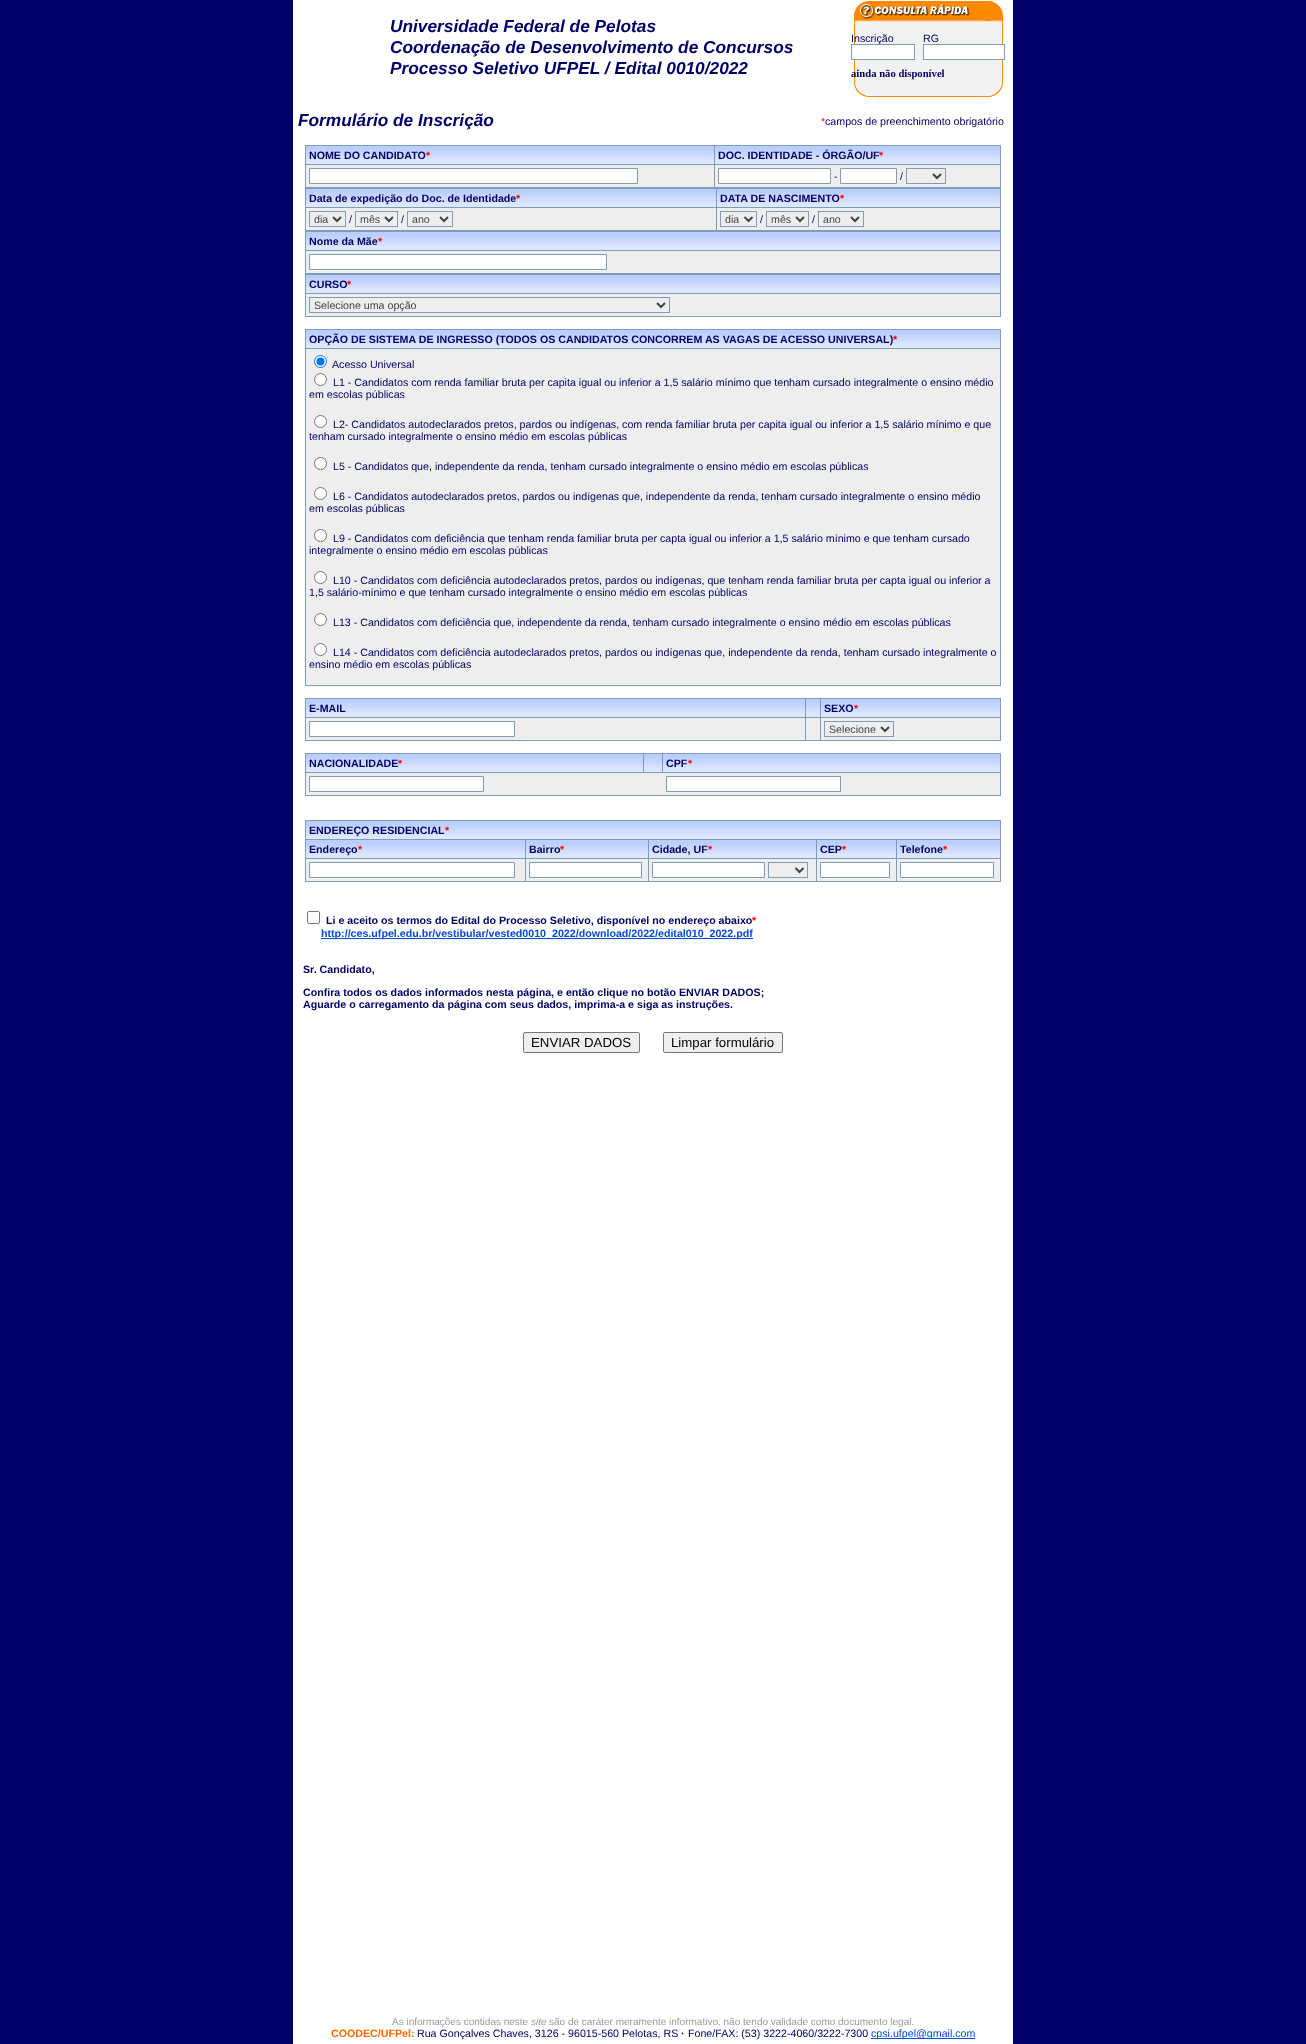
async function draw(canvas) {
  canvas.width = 1306;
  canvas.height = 2044;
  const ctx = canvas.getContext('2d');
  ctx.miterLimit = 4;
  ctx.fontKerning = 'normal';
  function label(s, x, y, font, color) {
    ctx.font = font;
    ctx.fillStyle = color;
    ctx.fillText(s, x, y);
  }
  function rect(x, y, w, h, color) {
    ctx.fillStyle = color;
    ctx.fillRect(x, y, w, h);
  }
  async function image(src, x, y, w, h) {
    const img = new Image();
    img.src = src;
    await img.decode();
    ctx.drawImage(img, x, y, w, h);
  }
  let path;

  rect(0, 0, 1306, 2044, '#006');
  rect(293, 0, 720, 2044, '#fff');
  label('Universidade Federal de Pelotas', 390, 32, 'italic bold 17.3px Liberation Sans', '#006');
  label('Coordenação de Desenvolvimento de Concursos', 390, 53, 'italic bold 17.3px Liberation Sans', '#006');
  label('Processo Seletivo UFPEL / Edital 0010/2022', 390, 74, 'italic bold 17.3px Liberation Sans', '#006');
  await image('assets/img1.png', 854, 1, 149, 96);
  label('Inscrição', 851, 42, '10.67px Liberation Sans', '#006');
  rect(854, 45, 60, 14, '#fff');
  ctx.strokeStyle = '#7f9db9';
  ctx.strokeRect(851.5, 44.5, 63, 15);
  label('RG', 923, 42, '10.67px Liberation Sans', '#006');
  rect(924, 45, 79, 14, '#fff');
  ctx.strokeRect(923.5, 44.5, 81, 15);
  label('ainda não disponível', 851, 77, 'bold 10.67px Liberation Serif', '#006');
  label('Formulário de Inscrição', 298, 126, 'italic bold 17.3px Liberation Sans', '#006');
  label('*', 821, 125, '10.67px Liberation Sans', '#f00');
  label('campos de preenchimento obrigatório', 825, 125, '10.67px Liberation Sans', '#006');
  rect(305, 145, 696, 172, '#7f9db9');
  rect(306, 146, 408, 4, '#bbcefd');
  await image('assets/img2.png', 306, 150, 408, 14);
  label('NOME DO CANDIDATO', 309, 159, 'bold 10.67px Liberation Sans', '#006');
  label('*', 426, 159, 'bold 10.67px Liberation Sans', '#f00');
  rect(715, 146, 285, 4, '#bbcefd');
  await image('assets/img3.png', 715, 150, 285, 14);
  label('DOC. IDENTIDADE - ÓRGÃO/UF', 718, 159, 'bold 10.67px Liberation Sans', '#006');
  label('*', 879, 159, 'bold 10.67px Liberation Sans', '#f00');
  rect(306, 165, 408, 22, '#eee');
  ctx.fillStyle = '#fff';
  ctx.beginPath();
  ctx.rect(309.5, 168.5, 328, 15);
  ctx.fill();
  ctx.stroke();
  rect(715, 165, 285, 22, '#eee');
  ctx.fillStyle = '#fff';
  ctx.beginPath();
  ctx.rect(718.5, 168.5, 112, 15);
  ctx.fill();
  ctx.stroke();
  label('-', 834, 180, '10.67px Liberation Sans', '#006');
  ctx.fillStyle = '#fff';
  ctx.beginPath();
  ctx.rect(840.5, 168.5, 56, 15);
  ctx.fill();
  ctx.stroke();
  label('/', 900, 180, '10.67px Liberation Sans', '#006');
  ctx.strokeRect(906.5, 168.5, 39, 15);
  path = new Path2D('M933 174L937 178L941 174');
  ctx.strokeStyle = '#444';
  ctx.lineWidth = 2;
  ctx.stroke(path);
  rect(306, 189, 410, 4, '#bbcefd');
  await image('assets/img4.png', 306, 193, 410, 14);
  label('Data de expedição do Doc. de Identidade', 309, 202, 'bold 10.67px Liberation Sans', '#006');
  label('*', 516, 202, 'bold 10.67px Liberation Sans', '#f00');
  rect(717, 189, 283, 4, '#bbcefd');
  await image('assets/img5.png', 717, 193, 283, 14);
  label('DATA DE NASCIMENTO', 720, 202, 'bold 10.67px Liberation Sans', '#006');
  label('*', 840, 202, 'bold 10.67px Liberation Sans', '#f00');
  rect(306, 208, 410, 22, '#eee');
  ctx.strokeStyle = '#7f9db9';
  ctx.lineWidth = 1;
  ctx.strokeRect(309.5, 211.5, 36, 15);
  path = new Path2D('M333 217L337 221L341 217');
  ctx.strokeStyle = '#444';
  ctx.lineWidth = 2;
  ctx.stroke(path);
  label('dia', 314, 223, '10.67px Liberation Sans', '#444');
  label('/', 349, 223, '10.67px Liberation Sans', '#006');
  ctx.strokeStyle = '#7f9db9';
  ctx.lineWidth = 1;
  ctx.strokeRect(355.5, 211.5, 42, 15);
  path = new Path2D('M385 217L389 221L393 217');
  ctx.strokeStyle = '#444';
  ctx.lineWidth = 2;
  ctx.stroke(path);
  label('mês', 360, 223, '10.67px Liberation Sans', '#444');
  label('/', 401, 223, '10.67px Liberation Sans', '#006');
  ctx.strokeStyle = '#7f9db9';
  ctx.lineWidth = 1;
  ctx.strokeRect(407.5, 211.5, 45, 15);
  path = new Path2D('M440 217L444 221L448 217');
  ctx.strokeStyle = '#444';
  ctx.lineWidth = 2;
  ctx.stroke(path);
  label('ano', 412, 223, '10.67px Liberation Sans', '#444');
  rect(717, 208, 283, 22, '#eee');
  ctx.strokeStyle = '#7f9db9';
  ctx.lineWidth = 1;
  ctx.strokeRect(720.5, 211.5, 36, 15);
  path = new Path2D('M744.5 217L748.5 221L752.5 217');
  ctx.strokeStyle = '#444';
  ctx.lineWidth = 2;
  ctx.stroke(path);
  label('dia', 725, 223, '10.67px Liberation Sans', '#444');
  label('/', 760, 223, '10.67px Liberation Sans', '#006');
  ctx.strokeStyle = '#7f9db9';
  ctx.lineWidth = 1;
  ctx.strokeRect(766.5, 211.5, 42, 15);
  path = new Path2D('M796 217L800 221L804 217');
  ctx.strokeStyle = '#444';
  ctx.lineWidth = 2;
  ctx.stroke(path);
  label('mês', 771, 223, '10.67px Liberation Sans', '#444');
  label('/', 812, 223, '10.67px Liberation Sans', '#006');
  ctx.strokeStyle = '#7f9db9';
  ctx.lineWidth = 1;
  ctx.strokeRect(818.5, 211.5, 45, 15);
  path = new Path2D('M851 217L855 221L859 217');
  ctx.strokeStyle = '#444';
  ctx.lineWidth = 2;
  ctx.stroke(path);
  label('ano', 823, 223, '10.67px Liberation Sans', '#444');
  rect(306, 232, 694, 4, '#bbcefd');
  await image('assets/img6.png', 306, 236, 694, 14);
  label('Nome da Mãe', 309, 245, 'bold 10.67px Liberation Sans', '#006');
  label('*', 378, 245, 'bold 10.67px Liberation Sans', '#f00');
  rect(306, 251, 694, 22, '#eee');
  ctx.fillStyle = '#fff';
  ctx.beginPath();
  ctx.rect(309.5, 254.5, 297, 15);
  ctx.fill();
  ctx.strokeStyle = '#7f9db9';
  ctx.lineWidth = 1;
  ctx.stroke();
  rect(306, 275, 694, 4, '#bbcefd');
  await image('assets/img6.png', 306, 279, 694, 14);
  label('CURSO', 309, 288, 'bold 10.67px Liberation Sans', '#006');
  label('*', 347, 288, 'bold 10.67px Liberation Sans', '#f00');
  rect(306, 294, 694, 22, '#eee');
  ctx.strokeRect(309.5, 297.5, 360, 15);
  path = new Path2D('M657 303L661 307L665 303');
  ctx.strokeStyle = '#444';
  ctx.lineWidth = 2;
  ctx.stroke(path);
  label('Selecione uma opção', 314, 309, '10.67px Liberation Sans', '#444');
  rect(305, 329, 696, 357, '#7f9db9');
  rect(306, 330, 694, 4, '#bbcefd');
  await image('assets/img6.png', 306, 334, 694, 14);
  label('OPÇÃO DE SISTEMA DE INGRESSO (TODOS OS CANDIDATOS CONCORREM AS VAGAS DE ACESSO UNIVERSAL)', 309, 343, 'bold 10.67px Liberation Sans', '#006');
  label('*', 893, 343, 'bold 10.67px Liberation Sans', '#f00');
  rect(306, 349, 694, 336, '#eee');
  ctx.fillStyle = '#fff';
  ctx.beginPath();
  ctx.arc(320.5, 361.5, 6, 0, 2 * Math.PI);
  ctx.fill();
  ctx.strokeStyle = '#0075ff';
  ctx.lineWidth = 1;
  ctx.stroke();
  ctx.fillStyle = '#0075ff';
  ctx.beginPath();
  ctx.arc(320.5, 361.5, 4, 0, 2 * Math.PI);
  ctx.fill();
  label('Acesso Universal', 332, 368, '10.67px Liberation Sans', '#006');
  ctx.fillStyle = '#fff';
  ctx.beginPath();
  ctx.arc(320.5, 379.5, 6, 0, 2 * Math.PI);
  ctx.fill();
  ctx.strokeStyle = '#767676';
  ctx.stroke();
  label('L1 - Candidatos com renda familiar bruta per capita igual ou inferior a 1,5 salário mínimo que tenham cursado integralmente o ensino médio', 333, 386, '10.67px Liberation Sans', '#006');
  label('em escolas públicas', 309, 398, '10.67px Liberation Sans', '#006');
  ctx.fillStyle = '#fff';
  ctx.beginPath();
  ctx.arc(320.5, 421.5, 6, 0, 2 * Math.PI);
  ctx.fill();
  ctx.stroke();
  label('L2- Candidatos autodeclarados pretos, pardos ou indígenas, com renda familiar bruta per capita igual ou inferior a 1,5 salário mínimo e que', 333, 428, '10.67px Liberation Sans', '#006');
  label('tenham cursado integralmente o ensino médio em escolas públicas', 309, 440, '10.67px Liberation Sans', '#006');
  ctx.fillStyle = '#fff';
  ctx.beginPath();
  ctx.arc(320.5, 463.5, 6, 0, 2 * Math.PI);
  ctx.fill();
  ctx.stroke();
  label('L5 - Candidatos que, independente da renda, tenham cursado integralmente o ensino médio em escolas públicas', 333, 470, '10.67px Liberation Sans', '#006');
  ctx.fillStyle = '#fff';
  ctx.beginPath();
  ctx.arc(320.5, 493.5, 6, 0, 2 * Math.PI);
  ctx.fill();
  ctx.stroke();
  label('L6 - Candidatos autodeclarados pretos, pardos ou indígenas que, independente da renda, tenham cursado integralmente o ensino médio', 333, 500, '10.67px Liberation Sans', '#006');
  label('em escolas públicas', 309, 512, '10.67px Liberation Sans', '#006');
  ctx.fillStyle = '#fff';
  ctx.beginPath();
  ctx.arc(320.5, 535.5, 6, 0, 2 * Math.PI);
  ctx.fill();
  ctx.stroke();
  label('L9 - Candidatos com deficiência que tenham renda familiar bruta per capta igual ou inferior a 1,5 salário mínimo e que tenham cursado', 333, 542, '10.67px Liberation Sans', '#006');
  label('integralmente o ensino médio em escolas públicas', 309, 554, '10.67px Liberation Sans', '#006');
  ctx.fillStyle = '#fff';
  ctx.beginPath();
  ctx.arc(320.5, 577.5, 6, 0, 2 * Math.PI);
  ctx.fill();
  ctx.stroke();
  label('L10 - Candidatos com deficiência autodeclarados pretos, pardos ou indígenas, que tenham renda familiar bruta per capta igual ou inferior a', 333, 584, '10.67px Liberation Sans', '#006');
  label('1,5 salário-mínimo e que tenham cursado integralmente o ensino médio em escolas públicas', 309, 596, '10.67px Liberation Sans', '#006');
  ctx.fillStyle = '#fff';
  ctx.beginPath();
  ctx.arc(320.5, 619.5, 6, 0, 2 * Math.PI);
  ctx.fill();
  ctx.stroke();
  label('L13 - Candidatos com deficiência que, independente da renda, tenham cursado integralmente o ensino médio em escolas públicas', 333, 626, '10.67px Liberation Sans', '#006');
  ctx.fillStyle = '#fff';
  ctx.beginPath();
  ctx.arc(320.5, 649.5, 6, 0, 2 * Math.PI);
  ctx.fill();
  ctx.stroke();
  label('L14 - Candidatos com deficiência autodeclarados pretos, pardos ou indígenas que, independente da renda, tenham cursado integralmente o', 333, 656, '10.67px Liberation Sans', '#006');
  label('ensino médio em escolas públicas', 309, 668, '10.67px Liberation Sans', '#006');
  rect(305, 698, 696, 43, '#7f9db9');
  rect(306, 699, 499, 4, '#bbcefd');
  await image('assets/img7.png', 306, 703, 499, 14);
  label('E-MAIL', 309, 712, 'bold 10.67px Liberation Sans', '#006');
  rect(806, 699, 14, 4, '#bbcefd');
  await image('assets/img8.png', 806, 703, 14, 14);
  rect(821, 699, 179, 4, '#bbcefd');
  await image('assets/img9.png', 821, 703, 179, 14);
  label('SEXO', 824, 712, 'bold 10.67px Liberation Sans', '#006');
  label('*', 854, 712, 'bold 10.67px Liberation Sans', '#f00');
  rect(306, 718, 499, 22, '#eee');
  ctx.fillStyle = '#fff';
  ctx.beginPath();
  ctx.rect(309.5, 721.5, 205, 15);
  ctx.fill();
  ctx.strokeStyle = '#7f9db9';
  ctx.stroke();
  rect(806, 718, 14, 22, '#eee');
  rect(821, 718, 179, 22, '#eee');
  ctx.strokeRect(824.5, 721.5, 69, 15);
  path = new Path2D('M881 727L885 731L889 727');
  ctx.strokeStyle = '#444';
  ctx.lineWidth = 2;
  ctx.stroke(path);
  label('Selecione', 829, 733, '10.67px Liberation Sans', '#444');
  rect(305, 753, 696, 43, '#7f9db9');
  rect(306, 754, 337, 4, '#bbcefd');
  await image('assets/img10.png', 306, 758, 337, 14);
  label('NACIONALIDADE', 309, 767, 'bold 10.67px Liberation Sans', '#006');
  label('*', 398, 767, 'bold 10.67px Liberation Sans', '#f00');
  rect(644, 754, 18, 4, '#bbcefd');
  await image('assets/img11.png', 644, 758, 18, 14);
  rect(663, 754, 337, 4, '#bbcefd');
  await image('assets/img10.png', 663, 758, 337, 14);
  label('CPF', 666, 767, 'bold 10.67px Liberation Sans', '#006');
  label('*', 688, 767, 'bold 10.67px Liberation Sans', '#f00');
  rect(306, 773, 694, 22, '#eee');
  ctx.fillStyle = '#fff';
  ctx.beginPath();
  ctx.rect(309.5, 776.5, 174, 15);
  ctx.fill();
  ctx.strokeStyle = '#7f9db9';
  ctx.lineWidth = 1;
  ctx.stroke();
  ctx.beginPath();
  ctx.rect(666.5, 776.5, 174, 15);
  ctx.fill();
  ctx.stroke();
  rect(305, 820, 696, 62, '#7f9db9');
  rect(306, 821, 694, 4, '#bbcefd');
  await image('assets/img6.png', 306, 825, 694, 14);
  label('ENDEREÇO RESIDENCIAL', 309, 834, 'bold 10.67px Liberation Sans', '#006');
  label('*', 445, 834, 'bold 10.67px Liberation Sans', '#f00');
  rect(306, 840, 219, 4, '#bbcefd');
  await image('assets/img12.png', 306, 844, 219, 14);
  label('Endereço', 309, 853, 'bold 10.67px Liberation Sans', '#006');
  label('*', 358, 853, 'bold 10.67px Liberation Sans', '#f00');
  rect(526, 840, 122, 4, '#bbcefd');
  await image('assets/img13.png', 526, 844, 122, 14);
  label('Bairro', 529, 853, 'bold 10.67px Liberation Sans', '#006');
  label('*', 560, 853, 'bold 10.67px Liberation Sans', '#f00');
  rect(649, 840, 167, 4, '#bbcefd');
  await image('assets/img14.png', 649, 844, 167, 14);
  label('Cidade, UF', 652, 853, 'bold 10.67px Liberation Sans', '#006');
  label('*', 708, 853, 'bold 10.67px Liberation Sans', '#f00');
  rect(817, 840, 79, 4, '#bbcefd');
  await image('assets/img15.png', 817, 844, 79, 14);
  label('CEP', 820, 853, 'bold 10.67px Liberation Sans', '#006');
  label('*', 842, 853, 'bold 10.67px Liberation Sans', '#f00');
  rect(897, 840, 103, 4, '#bbcefd');
  await image('assets/img16.png', 897, 844, 103, 14);
  label('Telefone', 900, 853, 'bold 10.67px Liberation Sans', '#006');
  label('*', 943, 853, 'bold 10.67px Liberation Sans', '#f00');
  rect(306, 859, 219, 22, '#eee');
  ctx.fillStyle = '#fff';
  ctx.beginPath();
  ctx.rect(309.5, 862.5, 205, 15);
  ctx.fill();
  ctx.stroke();
  rect(526, 859, 122, 22, '#eee');
  ctx.fillStyle = '#fff';
  ctx.beginPath();
  ctx.rect(529.5, 862.5, 112, 15);
  ctx.fill();
  ctx.stroke();
  rect(649, 859, 167, 22, '#eee');
  ctx.fillStyle = '#fff';
  ctx.beginPath();
  ctx.rect(652.5, 862.5, 112, 15);
  ctx.fill();
  ctx.stroke();
  ctx.strokeRect(768.5, 862.5, 39, 15);
  path = new Path2D('M795.5 868L799.5 872L803.5 868');
  ctx.strokeStyle = '#444';
  ctx.lineWidth = 2;
  ctx.stroke(path);
  rect(817, 859, 79, 22, '#eee');
  ctx.fillStyle = '#fff';
  ctx.beginPath();
  ctx.rect(820.5, 862.5, 69, 15);
  ctx.fill();
  ctx.strokeStyle = '#7f9db9';
  ctx.lineWidth = 1;
  ctx.stroke();
  rect(897, 859, 103, 22, '#eee');
  ctx.fillStyle = '#fff';
  ctx.beginPath();
  ctx.rect(900.5, 862.5, 93, 15);
  ctx.fill();
  ctx.stroke();
  ctx.beginPath();
  ctx.roundRect(307.5, 911.5, 12, 12, 1.5);
  ctx.strokeStyle = '#767676';
  ctx.stroke();
  label('Li e aceito os termos do Edital do Processo Seletivo, disponível no endereço abaixo', 326, 924, 'bold 10.67px Liberation Sans', '#006');
  label('*', 752, 924, 'bold 10.67px Liberation Sans', '#f00');
  rect(321, 938, 432, 1, '#0049dd');
  label('http://ces.ufpel.edu.br/vestibular/vested0010_2022/download/2022/edital010_2022.pdf', 321, 937, 'bold 10.67px Liberation Sans', '#0049dd');
  label('Sr. Candidato,', 303, 973, 'bold 10.67px Liberation Sans', '#006');
  label('Confira todos os dados informados nesta página, e então clique no botão ENVIAR DADOS;', 303, 996, 'bold 10.67px Liberation Sans', '#006');
  label('Aguarde o carregamento da página com seus dados, imprima-a e siga as instruções.', 303, 1008, 'bold 10.67px Liberation Sans', '#006');
  ctx.fillStyle = '#efefef';
  ctx.beginPath();
  ctx.roundRect(523.5, 1032.5, 116, 20, 1.5);
  ctx.fill();
  ctx.stroke();
  label('ENVIAR DADOS', 531, 1047, '13.25px Liberation Sans', '#000');
  ctx.fillStyle = '#efefef';
  ctx.beginPath();
  ctx.roundRect(663.5, 1032.5, 119, 20, 1.5);
  ctx.fill();
  ctx.stroke();
  label('Limpar formulário', 671, 1047, '13.25px Liberation Sans', '#000');
  label('As informações contidas neste', 392, 2025, '10px Liberation Sans', '#999');
  label('site', 531, 2025, 'italic 10px Liberation Sans', '#999');
  label('são de caráter meramente informativo, não tendo validade como documento legal.', 549, 2025, '10px Liberation Sans', '#999');
  label('COODEC/UFPel:', 331, 2037, 'bold 10.67px Liberation Sans', '#f60');
  label('Rua Gonçalves Chaves, 3126 - 96015-560 Pelotas, RS', 417, 2037, '10.67px Liberation Sans', '#006');
  label('·', 681, 2037, 'bold 10.67px Liberation Sans', '#006');
  label('Fone/FAX: (53) 3222-4060/3222-7300', 688, 2037, '10.67px Liberation Sans', '#006');
  rect(871, 2038, 104, 1, '#0049dd');
  label('cpsi.ufpel@gmail.com', 871, 2037, '10.67px Liberation Sans', '#0049dd');
}

draw(document.querySelector('canvas'));
